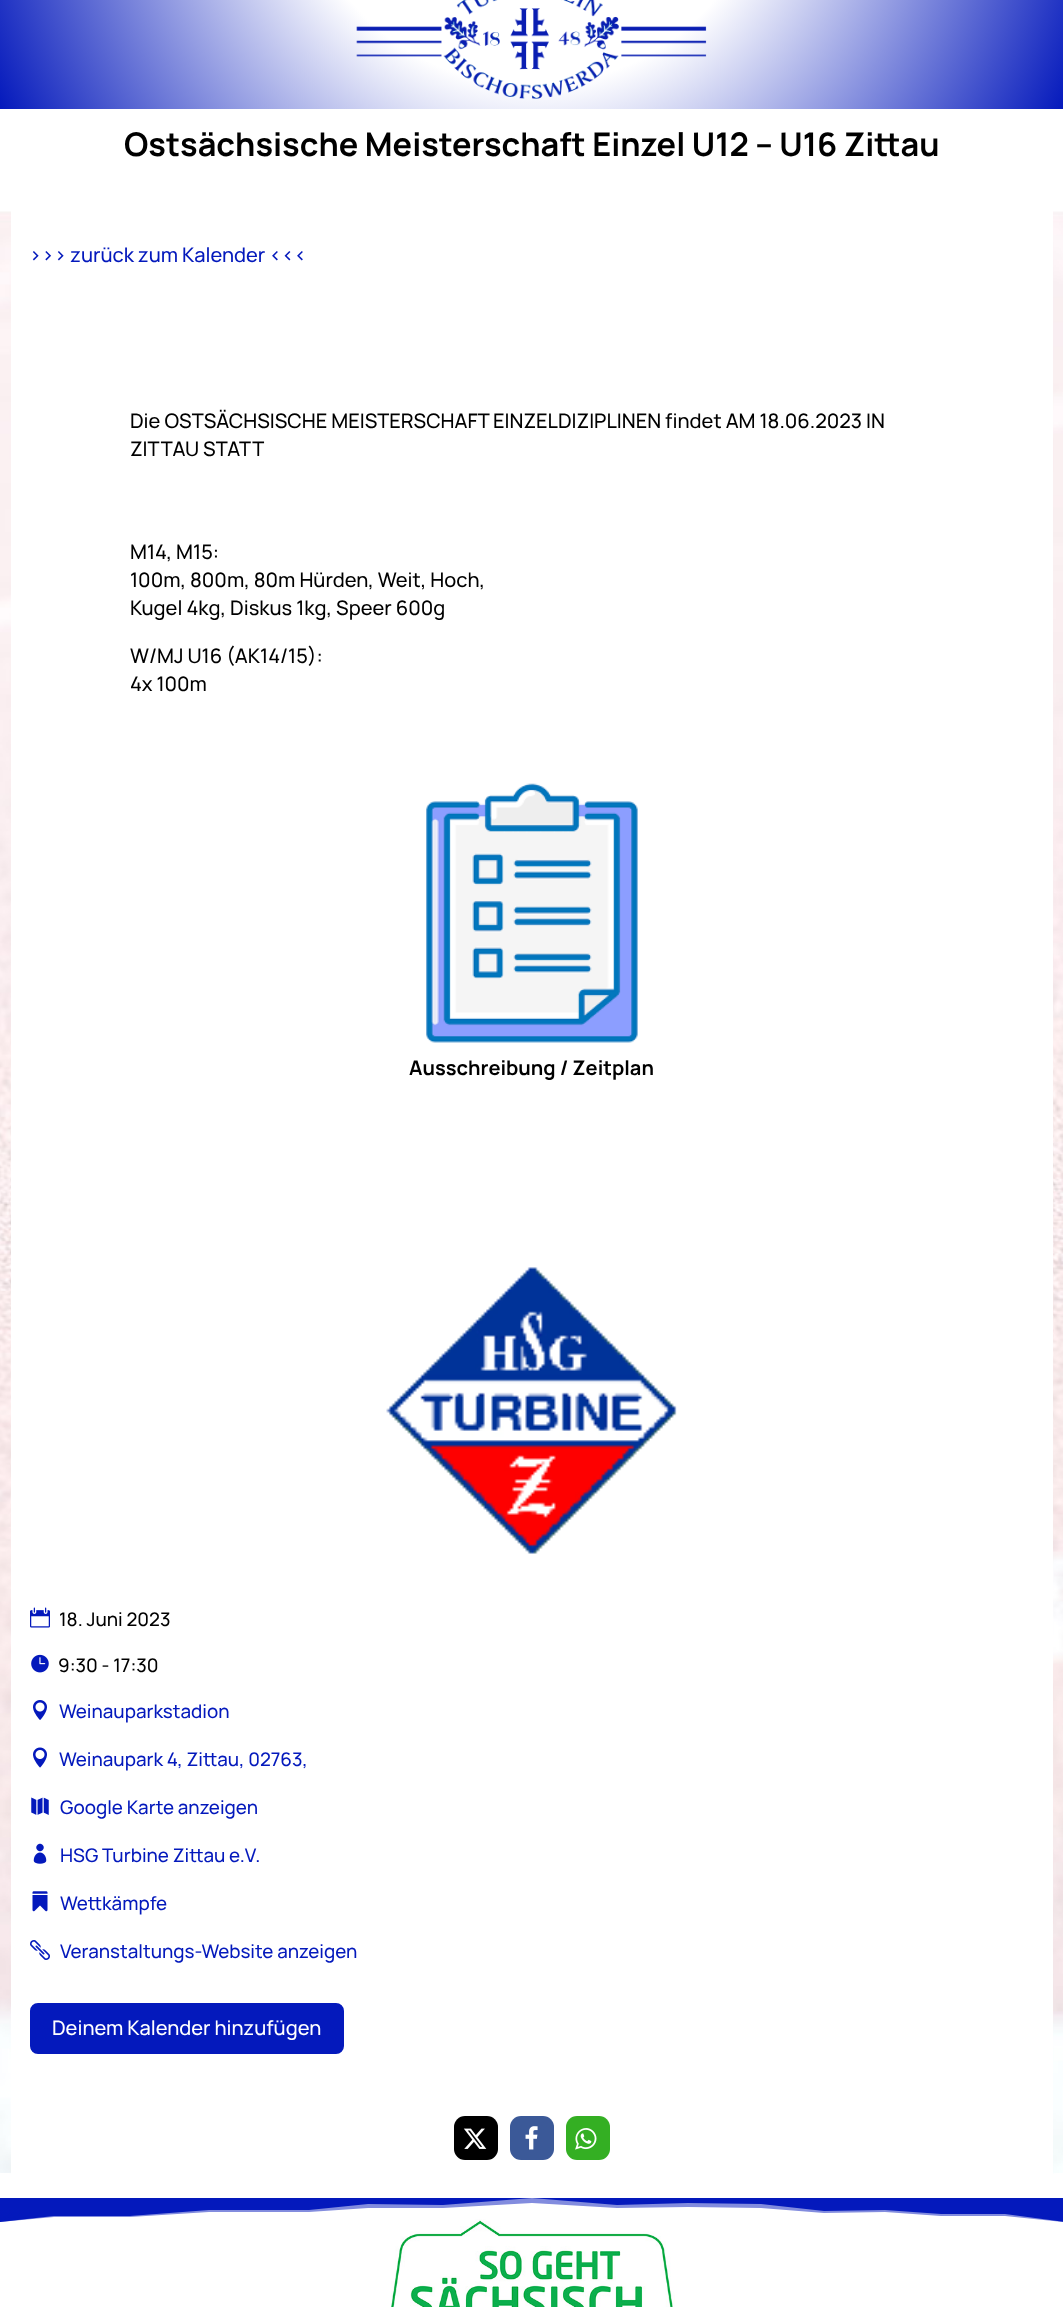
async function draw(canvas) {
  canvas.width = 1063;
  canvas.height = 2307;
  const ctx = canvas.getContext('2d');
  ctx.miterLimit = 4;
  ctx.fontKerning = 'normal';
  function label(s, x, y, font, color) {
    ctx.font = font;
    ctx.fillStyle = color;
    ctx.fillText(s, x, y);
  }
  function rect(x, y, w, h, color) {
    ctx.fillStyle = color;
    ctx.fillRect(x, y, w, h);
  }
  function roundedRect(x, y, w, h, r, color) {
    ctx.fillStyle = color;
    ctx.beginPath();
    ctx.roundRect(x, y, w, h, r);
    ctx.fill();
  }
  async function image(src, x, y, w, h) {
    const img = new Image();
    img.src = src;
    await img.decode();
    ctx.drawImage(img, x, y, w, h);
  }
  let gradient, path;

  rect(0, 0, 1063, 2307, '#fff');
  gradient = ctx.createRadialGradient(532, -152, 0, 532, -152, 593);
  gradient.addColorStop(0.4, '#fff');
  gradient.addColorStop(1, '#0419bc');
  ctx.fillStyle = gradient;
  ctx.fillRect(0, 0, 1063, 109);
  await image('assets/img1.png', 356, 0, 351, 99);
  label('Ostsächsische Meisterschaft Einzel U12 – U16 Zittau', 124, 156, 'bold 32.5px Manrope', '#000');
  await image('assets/img2.png', 0, 211, 1063, 1963);
  rect(11, 211, 1042, 1963, '#fff');
  label('>>> zurück zum Kalender <<<', 29, 262, '500 20px Manrope', '#0419bc');
  label('Die OSTSÄCHSISCHE MEISTERSCHAFT EINZELDIZIPLINEN findet AM 18.06.2023 IN', 130, 428, '500 20px Manrope', '#000');
  label('ZITTAU STATT', 130, 456, '500 20px Manrope', '#000');
  label('M14, M15:', 130, 559, '500 20px Manrope', '#000');
  label('100m, 800m, 80m Hürden, Weit, Hoch,', 130, 587, '500 20px Manrope', '#000');
  label('Kugel 4kg, Diskus 1kg, Speer 600g', 130, 615, '500 20px Manrope', '#000');
  label('W/MJ U16 (AK14/15):', 130, 663, '500 20px Manrope', '#000');
  label('4x 100m', 130, 691, '500 20px Manrope', '#000');
  await image('assets/img3.png', 426, 783, 212, 260);
  label('Ausschreibung / Zeitplan', 409, 1075, 'bold 20px Manrope', '#000');
  await image('assets/img4.png', 386, 1267, 291, 287);
  await image('assets/img5.png', 30, 1607, 20, 21);
  label('18. Juni 2023', 59, 1626, '500 18.75px Manrope', '#000');
  await image('assets/img6.png', 31, 1654, 18, 19);
  label('9:30 - 17:30', 58, 1672, '500 18.75px Manrope', '#000');
  await image('assets/img7.png', 33, 1700, 14, 20);
  label('Weinauparkstadion', 59, 1718, '500 18.75px Manrope', '#0419bc');
  await image('assets/img8.png', 33, 1747, 14, 21);
  label('Weinaupark 4, Zittau, 02763,', 59, 1766, '500 18.75px Manrope', '#0419bc');
  await image('assets/img9.png', 31, 1797, 18, 18);
  label('Google Karte anzeigen', 60, 1814, '500 18.75px Manrope', '#0419bc');
  await image('assets/img10.png', 33, 1843, 14, 21);
  label('HSG Turbine Zittau e.V.', 60, 1862, '500 18.75px Manrope', '#0419bc');
  await image('assets/img11.png', 32, 1891, 16, 21);
  label('Wettkämpfe', 60, 1910, '500 18.75px Manrope', '#0419bc');
  await image('assets/img12.png', 30, 1940, 20, 20);
  label('Veranstaltungs-Website anzeigen', 60, 1958, '500 18.75px Manrope', '#0419bc');
  ctx.beginPath();
  ctx.roundRect(31.5, 2004.5, 311, 48, 6.5);
  ctx.fill();
  ctx.strokeStyle = '#0419bc';
  ctx.lineWidth = 3;
  ctx.stroke();
  label('Deinem Kalender hinzufügen', 52, 2035, '500 20px Manrope', '#fff');
  roundedRect(454, 2116, 44, 44, 11, '#000');
  await image('assets/img13.png', 463, 2128, 24, 21);
  roundedRect(510, 2116, 44, 44, 11, '#3b5998');
  await image('assets/img14.png', 525, 2126, 13, 24);
  roundedRect(566, 2116, 44, 44, 11, '#34af23');
  await image('assets/img15.png', 575, 2128, 22, 22);
  ctx.save();
  ctx.beginPath();
  ctx.rect(0, 2173, 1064, 25);
  ctx.clip();
  ctx.fillStyle = '#ffffff80';
  path = new Path2D('M0 2172L54 2178H130L209 2183H309L368 2187H443L532 2192L617 2187L688 2188L761 2187L824 2182L885 2183L941 2179H1005L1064 2172V2198H0Z');
  ctx.fill(path);
  ctx.fillStyle = '#fff';
  path = new Path2D('M0 2172L54 2179H130L209 2185H309L368 2191L443 2190L532 2197L617 2190L688 2192L761 2191L824 2184L885 2185L941 2181H1005L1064 2172V2198H0Z');
  ctx.fill(path);
  ctx.restore();
  await image('assets/img16.png', 391, 2219, 284, 88);
  ctx.fillStyle = '#828cde';
  path = new Path2D('M0 2222L54 2217H130L209 2212H309L368 2208H443L532 2203L617 2208L688 2207L761 2208L824 2213L885 2212L941 2216H1005L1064 2222V2198H0Z');
  ctx.fill(path);
  ctx.fillStyle = '#0419bc';
  path = new Path2D('M0 2222L54 2216H130L209 2210H309L368 2204L443 2205L532 2198L617 2205L688 2203L761 2204L824 2211L885 2210L941 2214H1005L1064 2222V2198H0Z');
  ctx.fill(path);
}

draw(document.querySelector('canvas'));
